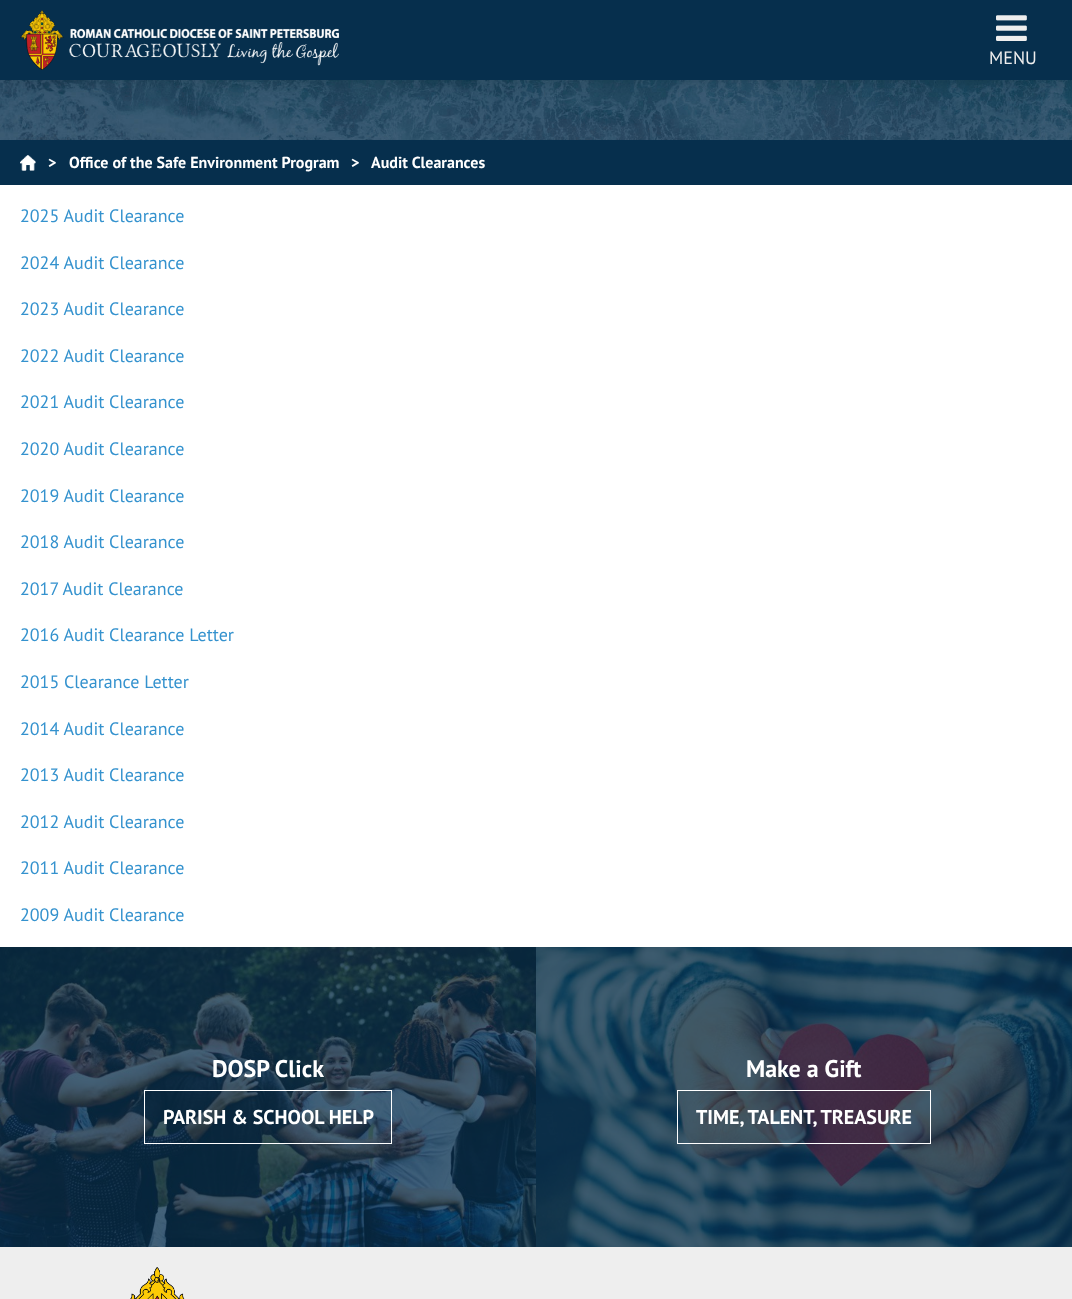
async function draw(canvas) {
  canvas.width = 1072;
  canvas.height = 1299;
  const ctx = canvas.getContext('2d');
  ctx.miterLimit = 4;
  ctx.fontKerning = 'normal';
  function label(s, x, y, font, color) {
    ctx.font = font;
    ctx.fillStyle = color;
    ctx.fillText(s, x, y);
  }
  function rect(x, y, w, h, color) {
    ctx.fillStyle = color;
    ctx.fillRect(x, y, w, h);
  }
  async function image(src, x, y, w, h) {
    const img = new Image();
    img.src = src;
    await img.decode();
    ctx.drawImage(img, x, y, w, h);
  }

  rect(0, 0, 1072, 1299, '#fff');
  await image('assets/img1.png', 0, 80, 1072, 60);
  ctx.fillStyle = '#00000026';
  ctx.filter = 'blur(10px)';
  ctx.beginPath();
  ctx.rect(0, 0, 1072, 80);
  ctx.fill();
  ctx.filter = 'none';
  rect(0, 0, 1072, 80, '#062f4d');
  await image('assets/img2.png', 20, 10, 319, 60);
  await image('assets/img3.png', 996, 15, 31, 26);
  label('MENU', 989, 64, '18px PT Sans', '#eee');
  rect(0, 140, 1072, 45, '#062f4d');
  await image('assets/img4.png', 20, 155, 16, 16);
  label('>', 48, 168, 'bold 16px PT Sans', '#fff');
  label('Office of the Safe Environment Program', 69, 168, 'bold 16px PT Sans', '#fff');
  label('>', 351, 168, 'bold 16px PT Sans', '#fff');
  label('Audit Clearances', 371, 168, 'bold 16px PT Sans', '#fff');
  label('2025 Audit Clearance', 20, 222, '18px PT Sans', '#3492ce');
  label('2024 Audit Clearance', 20, 269, '18px PT Sans', '#3492ce');
  label('2023 Audit Clearance', 20, 315, '18px PT Sans', '#3492ce');
  label('2022 Audit Clearance', 20, 362, '18px PT Sans', '#3492ce');
  label('2021 Audit Clearance', 20, 408, '18px PT Sans', '#3492ce');
  label('2020 Audit Clearance', 20, 455, '18px PT Sans', '#3492ce');
  label('2019 Audit Clearance', 20, 502, '18px PT Sans', '#3492ce');
  label('2018 Audit Clearance', 20, 548, '18px PT Sans', '#3492ce');
  label('2017 Audit Clearance', 20, 595, '18px PT Sans', '#3492ce');
  label('2016 Audit Clearance Letter', 20, 641, '18px PT Sans', '#3492ce');
  label('2015 Clearance Letter', 20, 688, '18px PT Sans', '#3492ce');
  label('2014 Audit Clearance', 20, 735, '18px PT Sans', '#3492ce');
  label('2013 Audit Clearance', 20, 781, '18px PT Sans', '#3492ce');
  label('2012 Audit Clearance', 20, 828, '18px PT Sans', '#3492ce');
  label('2011 Audit Clearance', 20, 874, '18px PT Sans', '#3492ce');
  label('2009 Audit Clearance', 20, 921, '18px PT Sans', '#3492ce');
  rect(0, 1247, 1072, 52, '#eee');
  await image('assets/img5.png', 0, 947, 536, 300);
  label('DOSP Click', 212, 1077, 'bold 24px PT Sans', '#fff');
  ctx.strokeStyle = '#fff';
  ctx.strokeRect(144.5, 1090.5, 247, 53);
  label('PARISH & SCHOOL HELP', 163, 1124, 'bold 20px PT Sans', '#fff');
  await image('assets/img6.png', 536, 947, 536, 300);
  label('Make a Gift', 746, 1077, 'bold 24px PT Sans', '#fff');
  ctx.strokeRect(677.5, 1090.5, 253, 53);
  label('TIME, TALENT, TREASURE', 696, 1124, 'bold 20px PT Sans', '#fff');
  await image('assets/img7.png', 130, 1267, 55, 32);
}

draw(document.querySelector('canvas'));
